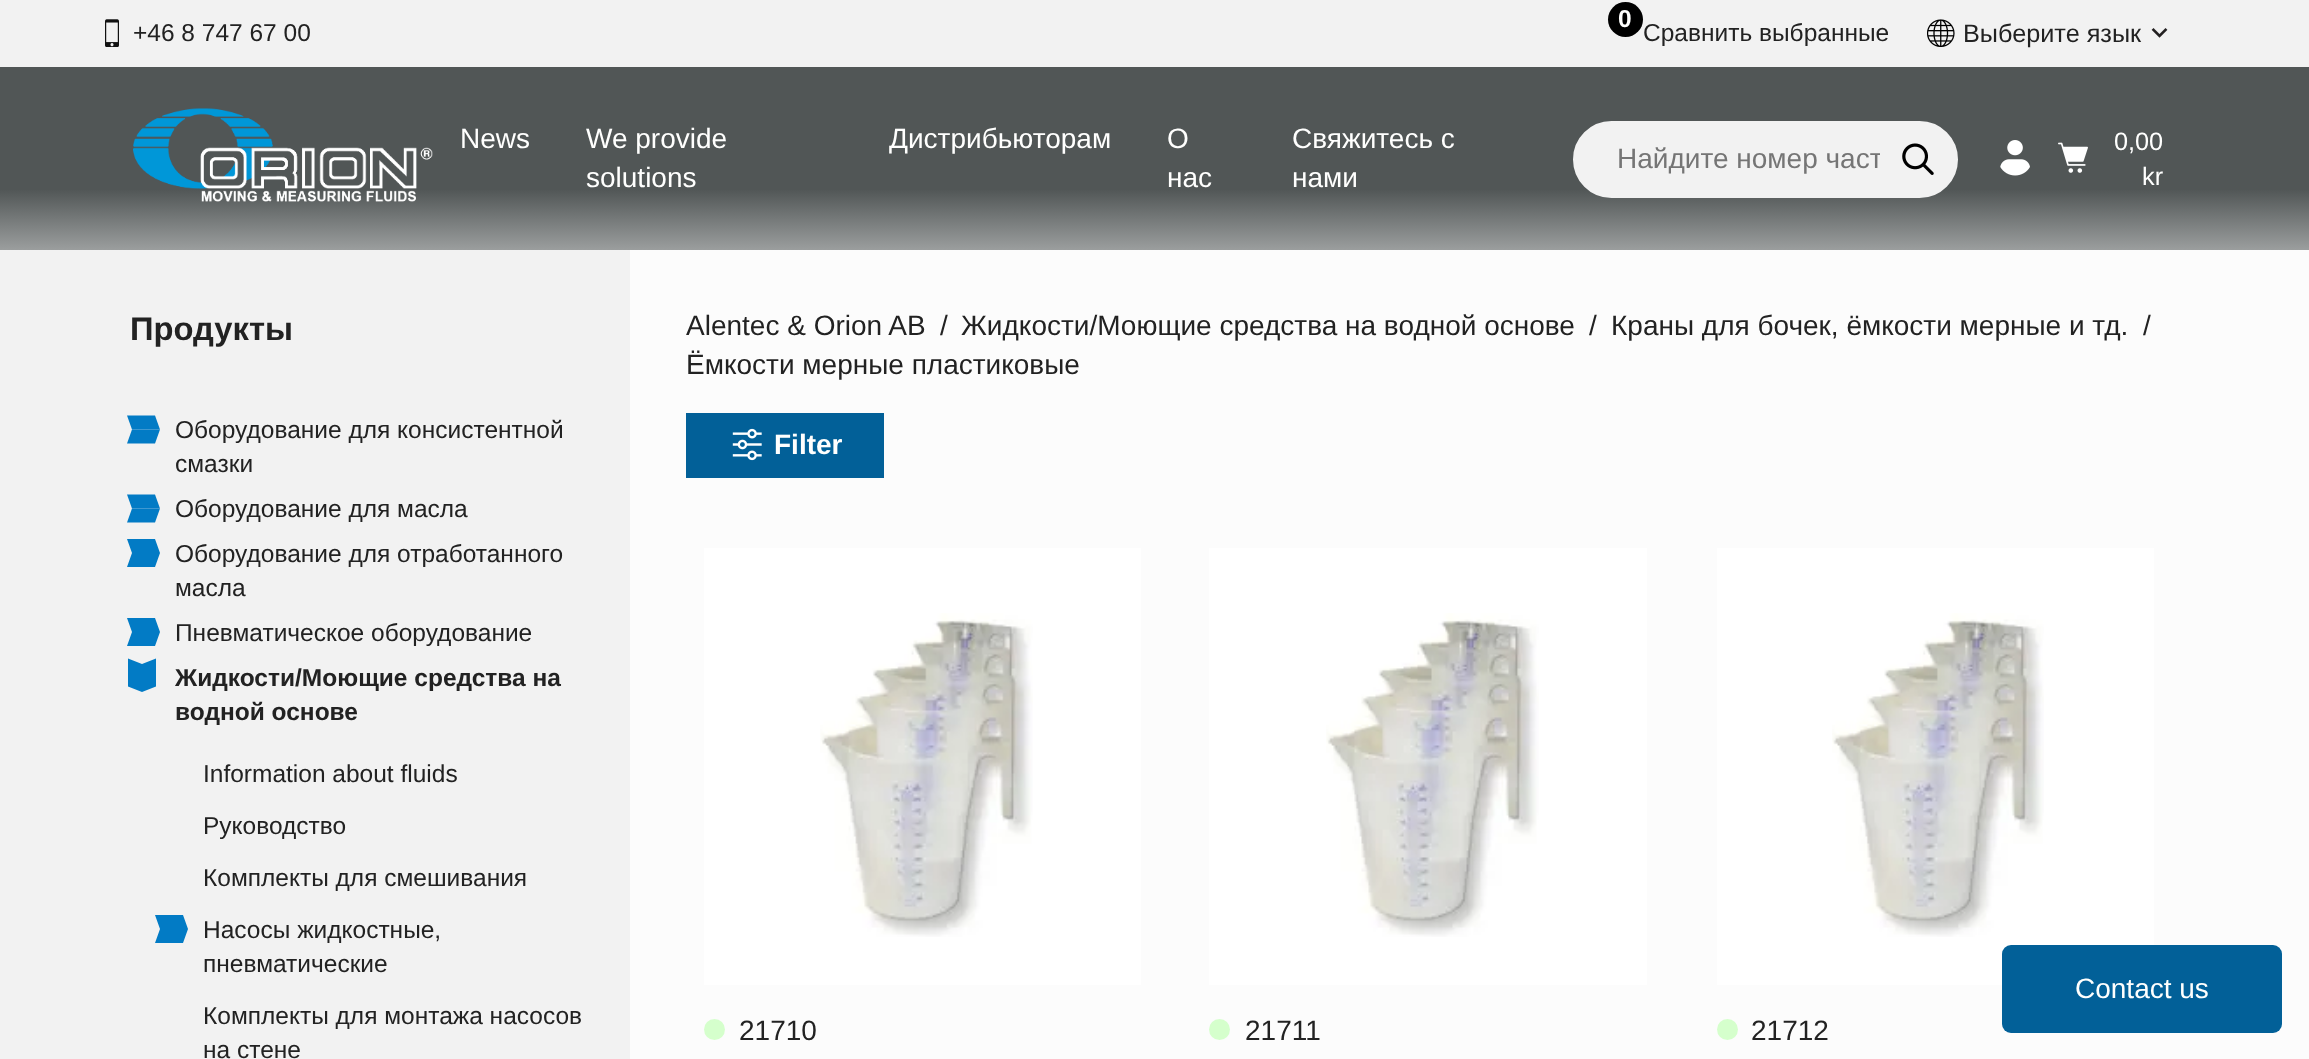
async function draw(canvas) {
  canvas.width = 2309;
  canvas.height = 1059;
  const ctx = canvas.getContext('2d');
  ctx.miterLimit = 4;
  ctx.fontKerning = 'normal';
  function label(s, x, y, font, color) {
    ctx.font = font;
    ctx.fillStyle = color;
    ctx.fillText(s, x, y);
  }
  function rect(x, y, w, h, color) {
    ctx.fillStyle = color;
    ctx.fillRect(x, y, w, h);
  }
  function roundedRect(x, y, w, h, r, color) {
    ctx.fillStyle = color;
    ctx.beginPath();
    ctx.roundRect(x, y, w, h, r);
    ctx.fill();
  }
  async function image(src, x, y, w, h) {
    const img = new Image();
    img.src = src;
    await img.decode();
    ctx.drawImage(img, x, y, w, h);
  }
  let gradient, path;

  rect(0, 0, 2309, 1059, '#fcfcfc');
  rect(0, 0, 2309, 67, '#f2f2f2');
  await image('assets/img1.png', 105, 19, 14, 28);
  label('+46 8 747 67 00', 133, 41, '24.5px Liberation Sans', '#222');
  ctx.fillStyle = '#000';
  ctx.beginPath();
  ctx.arc(1625.5, 19.5, 17.5, 0, 2 * Math.PI);
  ctx.fill();
  label('0', 1618, 27, 'bold 24.5px Liberation Sans', '#fffffe');
  label('Сравнить выбранные', 1643, 41, '24.5px Liberation Sans', '#222');
  await image('assets/img2.png', 1927, 19, 28, 28);
  label('Выберите язык', 1963, 42, '25.25px Liberation Sans', '#222');
  await image('assets/img3.png', 2151, 28, 17, 10);
  gradient = ctx.createLinearGradient(1155, 66, 1155, 250);
  gradient.addColorStop(0.67, '#515656');
  gradient.addColorStop(1, '#9b9e9e');
  ctx.fillStyle = gradient;
  ctx.fillRect(0, 67, 2309, 183);
  await image('assets/img4.png', 133, 108, 300, 94);
  label('News', 460, 148, '28px Liberation Sans', '#fffffe');
  label('We provide', 586, 148, '28px Liberation Sans', '#fffffe');
  label('solutions', 586, 187, '28px Liberation Sans', '#fffffe');
  label('Дистрибьюторам', 889, 148, '28px Liberation Sans', '#fffffe');
  label('О', 1167, 148, '28px Liberation Sans', '#fffffe');
  label('нас', 1167, 187, '28px Liberation Sans', '#fffffe');
  label('Свяжитесь с', 1292, 148, '28px Liberation Sans', '#fffffe');
  label('нами', 1292, 187, '28px Liberation Sans', '#fffffe');
  ctx.fillStyle = '#f2f2f2';
  ctx.beginPath();
  ctx.roundRect(1574, 122, 383, 75, 37.5);
  ctx.fill();
  ctx.strokeStyle = '#f2f2f2';
  ctx.lineWidth = 2;
  ctx.stroke();
  ctx.save();
  ctx.beginPath();
  ctx.rect(1617, 144, 263, 31);
  ctx.clip();
  label('Найдите номер част', 1617, 168, '28px Liberation Sans', '#757575');
  ctx.restore();
  await image('assets/img5.png', 1902, 143, 32, 32);
  await image('assets/img6.png', 2000, 140, 30, 36);
  await image('assets/img7.png', 2058, 142, 30, 31);
  label('0,00', 2114, 150, '25.25px Liberation Sans', '#fffffe');
  label('kr', 2142, 185, '25.25px Liberation Sans', '#fffffe');
  rect(0, 250, 630, 809, '#f2f2f2');
  label('Продукты', 130, 340, 'bold 32.75px Liberation Sans', '#222');
  ctx.fillStyle = '#027bc5';
  path = new Path2D('M132 429.5H160L155 443.5H127Z');
  ctx.fill(path);
  path = new Path2D('M127 415.5H155L160 429.5H132Z');
  ctx.fill(path);
  label('Оборудование для консистентной', 175, 438, '24.5px Liberation Sans', '#222');
  label('смазки', 175, 472, '24.5px Liberation Sans', '#222');
  ctx.fillStyle = '#027bc5';
  path = new Path2D('M132 508.5H160L155 522.5H127Z');
  ctx.fill(path);
  path = new Path2D('M127 494.5H155L160 508.5H132Z');
  ctx.fill(path);
  label('Оборудование для масла', 175, 517, '24.5px Liberation Sans', '#222');
  ctx.fillStyle = '#027bc5';
  path = new Path2D('M132 553H160L155 567H127ZM127 539H155L160 553H132Z');
  ctx.fill(path);
  label('Оборудование для отработанного', 175, 562, '24.5px Liberation Sans', '#222');
  label('масла', 175, 596, '24.5px Liberation Sans', '#222');
  ctx.fillStyle = '#027bc5';
  path = new Path2D('M132 632H160L155 646H127ZM127 618H155L160 632H132Z');
  ctx.fill(path);
  label('Пневматическое оборудование', 175, 641, '24.5px Liberation Sans', '#222');
  ctx.fillStyle = '#027bc5';
  path = new Path2D('M142 664V692L128 686.5V658.5ZM156 658.5V686.5L142 692V664Z');
  ctx.fill(path);
  label('Жидкости/Моющие средства на', 175, 686, 'bold 24.5px Liberation Sans', '#222');
  label('водной основе', 175, 720, 'bold 24.5px Liberation Sans', '#222');
  label('Information about fluids', 203, 782, '24.5px Liberation Sans', '#222');
  label('Руководство', 203, 834, '24.5px Liberation Sans', '#222');
  label('Комплекты для смешивания', 203, 886, '24.5px Liberation Sans', '#222');
  ctx.fillStyle = '#027bc5';
  path = new Path2D('M160 929H188L183 943H155ZM155 915H183L188 929H160Z');
  ctx.fill(path);
  label('Насосы жидкостные,', 203, 938, '24.5px Liberation Sans', '#222');
  label('пневматические', 203, 972, '24.5px Liberation Sans', '#222');
  label('Комплекты для монтажа насосов', 203, 1024, '24.5px Liberation Sans', '#222');
  label('на стене', 203, 1058, '24.5px Liberation Sans', '#222');
  label('Alentec & Orion AB', 686, 335, '28px Liberation Sans', '#222');
  label('/', 940, 335, '28px Liberation Sans', '#222');
  label('Жидкости/Моющие средства на водной основе', 961, 335, '28px Liberation Sans', '#222');
  label('/', 1589, 335, '28px Liberation Sans', '#222');
  label('Краны для бочек, ёмкости мерные и тд.', 1611, 335, '28px Liberation Sans', '#222');
  label('/', 2143, 335, '28px Liberation Sans', '#222');
  label('Ёмкости мерные пластиковые', 686, 374, '28px Liberation Sans', '#222');
  rect(686, 413, 198, 65, '#026098');
  await image('assets/img8.png', 732, 428, 30, 33);
  label('Filter', 774, 454, 'bold 28px Liberation Sans', '#fffffe');
  rect(704, 548, 437, 437, '#fff');
  await image('assets/img9.png', 820, 613, 213, 324);
  ctx.fillStyle = '#d5ffcc';
  ctx.beginPath();
  ctx.arc(714.5, 1029.5, 10.5, 0, 2 * Math.PI);
  ctx.fill();
  label('21710', 739, 1040, '28px Liberation Sans', '#222');
  rect(1209, 548, 438, 437, '#fff');
  await image('assets/img10.png', 1326, 613, 213, 324);
  ctx.fillStyle = '#d5ffcc';
  ctx.beginPath();
  ctx.arc(1219.5, 1029.5, 10.5, 0, 2 * Math.PI);
  ctx.fill();
  label('21711', 1245, 1040, '28px Liberation Sans', '#222');
  rect(1717, 548, 437, 437, '#fff');
  await image('assets/img11.png', 1832, 613, 212, 324);
  ctx.fillStyle = '#d5ffcc';
  ctx.beginPath();
  ctx.arc(1727.5, 1029.5, 10.5, 0, 2 * Math.PI);
  ctx.fill();
  label('21712', 1751, 1040, '28px Liberation Sans', '#222');
  roundedRect(2002, 945, 280, 88, 9, '#026098');
  label('Contact us', 2075, 998, '28px Liberation Sans', '#fffffe');
}

draw(document.querySelector('canvas'));
